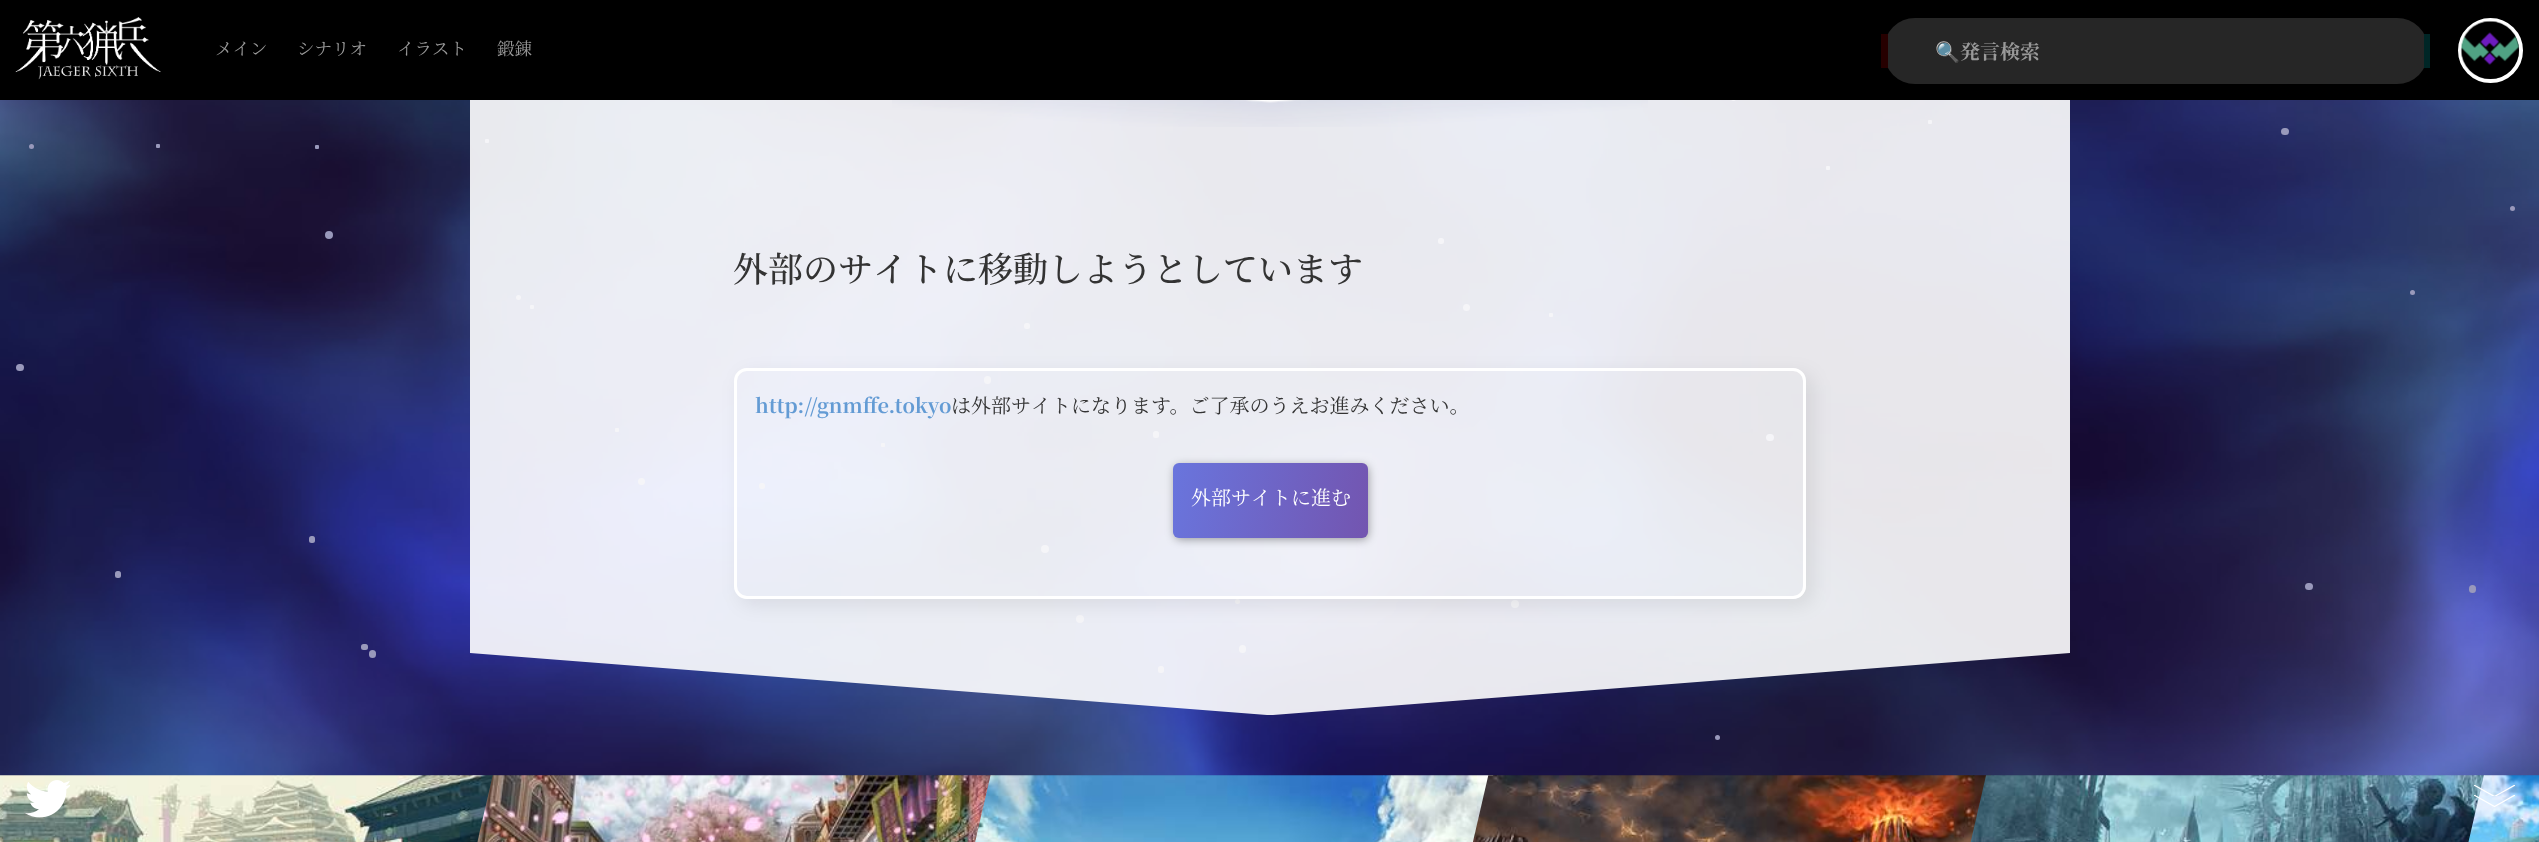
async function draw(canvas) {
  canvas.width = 2539;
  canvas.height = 842;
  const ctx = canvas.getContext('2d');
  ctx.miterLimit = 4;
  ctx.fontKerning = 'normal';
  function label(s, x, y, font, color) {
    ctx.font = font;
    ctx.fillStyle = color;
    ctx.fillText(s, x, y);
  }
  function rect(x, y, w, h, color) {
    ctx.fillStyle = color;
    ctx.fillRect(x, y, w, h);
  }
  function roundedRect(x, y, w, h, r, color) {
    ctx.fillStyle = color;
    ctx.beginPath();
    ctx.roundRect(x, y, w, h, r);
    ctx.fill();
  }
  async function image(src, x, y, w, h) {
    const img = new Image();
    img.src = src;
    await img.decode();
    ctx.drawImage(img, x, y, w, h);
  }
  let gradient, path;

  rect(0, 0, 2539, 842, '#fff');
  await image('assets/img3.png', 0, 100, 2539, 676);
  ctx.fillStyle = '#99b';
  ctx.beginPath();
  ctx.arc(1733.5, 98.5, 2.5, 0, 2 * Math.PI);
  ctx.fill();
  roundedRect(1928, 120, 4, 4, 1, '#99b');
  roundedRect(485, 139, 4, 4, 1, '#99b');
  roundedRect(1826, 166, 4, 4, 1, '#99b');
  roundedRect(1438, 238, 6, 6, 2.5, '#99b');
  ctx.beginPath();
  ctx.arc(1132.5, 262.5, 2.5, 0, 2 * Math.PI);
  ctx.fill();
  roundedRect(810, 274, 6, 6, 2.5, '#99b');
  ctx.beginPath();
  ctx.arc(518.5, 297.5, 2.5, 0, 2 * Math.PI);
  ctx.fill();
  roundedRect(530, 305, 4, 4, 1, '#99b');
  ctx.beginPath();
  ctx.arc(1466.5, 307.5, 3.5, 0, 2 * Math.PI);
  ctx.fill();
  roundedRect(1549, 313, 4, 4, 1, '#99b');
  roundedRect(1024, 323, 6, 6, 2.5, '#99b');
  roundedRect(984, 376, 7, 8, 3.5, '#99b');
  roundedRect(615, 428, 4, 4, 1, '#99b');
  roundedRect(1153, 431, 6, 7, 2.5, '#99b');
  roundedRect(1766, 434, 8, 7, 3.5, '#99b');
  roundedRect(881, 443, 4, 4, 1, '#99b');
  ctx.beginPath();
  ctx.arc(641.5, 481.5, 3.5, 0, 2 * Math.PI);
  ctx.fill();
  roundedRect(759, 483, 6, 6, 2.5, '#99b');
  ctx.beginPath();
  ctx.arc(1045, 549, 4, 0, 2 * Math.PI);
  ctx.fill();
  ctx.beginPath();
  ctx.arc(1237.5, 601.5, 2.5, 0, 2 * Math.PI);
  ctx.fill();
  ctx.beginPath();
  ctx.arc(1515, 604, 4, 0, 2 * Math.PI);
  ctx.fill();
  ctx.beginPath();
  ctx.arc(1080, 619, 4, 0, 2 * Math.PI);
  ctx.fill();
  roundedRect(1239, 645, 7, 8, 3.5, '#99b');
  roundedRect(1158, 666, 6, 7, 2.5, '#99b');
  ctx.fillStyle = '#ffffffe6';
  path = new Path2D('M470 38V653L1267 715H1273L2070 653V38H2064L1270 100L476 38Z');
  ctx.fill(path);
  rect(0, 0, 2539, 100, '#000');
  await image('assets/img1.png', 15, 17, 146, 63);
  label('メイン', 215, 55, '17.5px Noto Serif JP', '#999');
  label('シナリオ', 297, 55, '17.5px Noto Serif JP', '#999');
  label('イラスト', 397, 55, '17.5px Noto Serif JP', '#999');
  label('鍛錬', 497, 55, '17.5px Noto Serif JP', '#999');
  roundedRect(1884, 18, 544, 66, 31, '#262626');
  rect(1881, 34, 7, 34, '#260000');
  label('🔍', 1935, 59, 'bold 20px Noto Color Emoji', '#999');
  label('発言検索', 1960, 59, 'bold 20px Noto Serif JP', '#999');
  rect(2424, 34, 6, 34, '#002626');
  ctx.beginPath();
  ctx.arc(2490.5, 50.5, 30.5, 0, 2 * Math.PI);
  ctx.strokeStyle = '#fff';
  ctx.lineWidth = 4;
  ctx.stroke();
  await image('assets/img2.png', 2460, 20, 60, 60);
  roundedRect(2281, 128, 8, 7, 3.5, '#99b');
  ctx.beginPath();
  ctx.arc(31.5, 146.5, 2.5, 0, 2 * Math.PI);
  ctx.fill();
  roundedRect(156, 144, 4, 4, 1, '#99b');
  roundedRect(315, 145, 4, 4, 1, '#99b');
  ctx.beginPath();
  ctx.arc(2512.5, 208.5, 2.5, 0, 2 * Math.PI);
  ctx.fill();
  ctx.beginPath();
  ctx.arc(329, 235, 4, 0, 2 * Math.PI);
  ctx.fill();
  ctx.beginPath();
  ctx.arc(2412.5, 292.5, 2.5, 0, 2 * Math.PI);
  ctx.fill();
  roundedRect(16, 364, 8, 7, 3.5, '#99b');
  roundedRect(309, 536, 6, 7, 2.5, '#99b');
  roundedRect(115, 571, 6, 7, 2.5, '#99b');
  roundedRect(2305, 583, 8, 7, 3.5, '#99b');
  roundedRect(2469, 585, 7, 8, 3.5, '#99b');
  roundedRect(361, 644, 7, 6, 2.5, '#99b');
  roundedRect(369, 650, 7, 8, 3.5, '#99b');
  ctx.beginPath();
  ctx.arc(1717.5, 737.5, 2.5, 0, 2 * Math.PI);
  ctx.fill();
  await image('assets/img4.png', 892, 100, 756, 27);
  label('外部のサイトに移動しようとしています', 733, 282, '500 35px Noto Serif JP', '#333');
  ctx.save();
  path = new Path2D('M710 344H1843V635H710ZM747 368H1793C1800 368 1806 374 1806 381V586C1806 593 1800 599 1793 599H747C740 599 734 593 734 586V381C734 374 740 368 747 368Z');
  ctx.clip(path, 'evenodd');
  ctx.fillStyle = '#00000014';
  ctx.filter = 'blur(9.5px)';
  ctx.beginPath();
  ctx.roundRect(740, 374, 1073, 231, 13);
  ctx.fill();
  ctx.filter = 'none';
  ctx.restore();
  ctx.beginPath();
  ctx.roundRect(735.5, 369.5, 1069, 228, 11.5);
  ctx.lineWidth = 3;
  ctx.stroke();
  label('http://gnmffe.tokyo', 755, 413, 'bold 20px Noto Serif JP', '#639bd4');
  label('は外部サイトになります。ご了承のうえお進みください。', 951, 413, '20px Noto Serif JP', '#333');
  ctx.fillStyle = '#00000066';
  ctx.filter = 'blur(5px)';
  ctx.beginPath();
  ctx.roundRect(1175, 466, 193, 73, 5);
  ctx.fill();
  ctx.filter = 'none';
  gradient = ctx.createLinearGradient(1169, 482, 1371, 518);
  gradient.addColorStop(0, '#6975dd');
  gradient.addColorStop(1, '#7355b0');
  ctx.fillStyle = gradient;
  ctx.beginPath();
  ctx.roundRect(1173, 463, 195, 75, 6);
  ctx.fill();
  label('外部サイトに進む', 1191, 505, '20px Noto Serif JP', '#fff');
  await image('assets/img5.png', 0, 775, 498, 67);
  await image('assets/img6.png', 477, 775, 518, 67);
  await image('assets/img7.png', 975, 775, 519, 67);
  await image('assets/img8.png', 1473, 775, 518, 67);
  await image('assets/img9.png', 1970, 775, 519, 67);
  await image('assets/img10.png', 2468, 775, 71, 67);
  await image('assets/img11.png', 25, 780, 45, 38);
  ctx.save();
  ctx.beginPath();
  ctx.rect(2474, 785, 41, 11);
  ctx.clip();
  path = new Path2D('M2474 785L2494.5 796.5L2515 785');
  ctx.lineWidth = 1.2;
  ctx.stroke(path);
  ctx.restore();
  ctx.save();
  ctx.beginPath();
  ctx.rect(2474, 795, 41, 13);
  ctx.clip();
  path = new Path2D('M2474 795L2494.5 806.5L2515 795');
  ctx.lineWidth = 1.2;
  ctx.stroke(path);
  ctx.restore();
}

draw(document.querySelector('canvas'));
